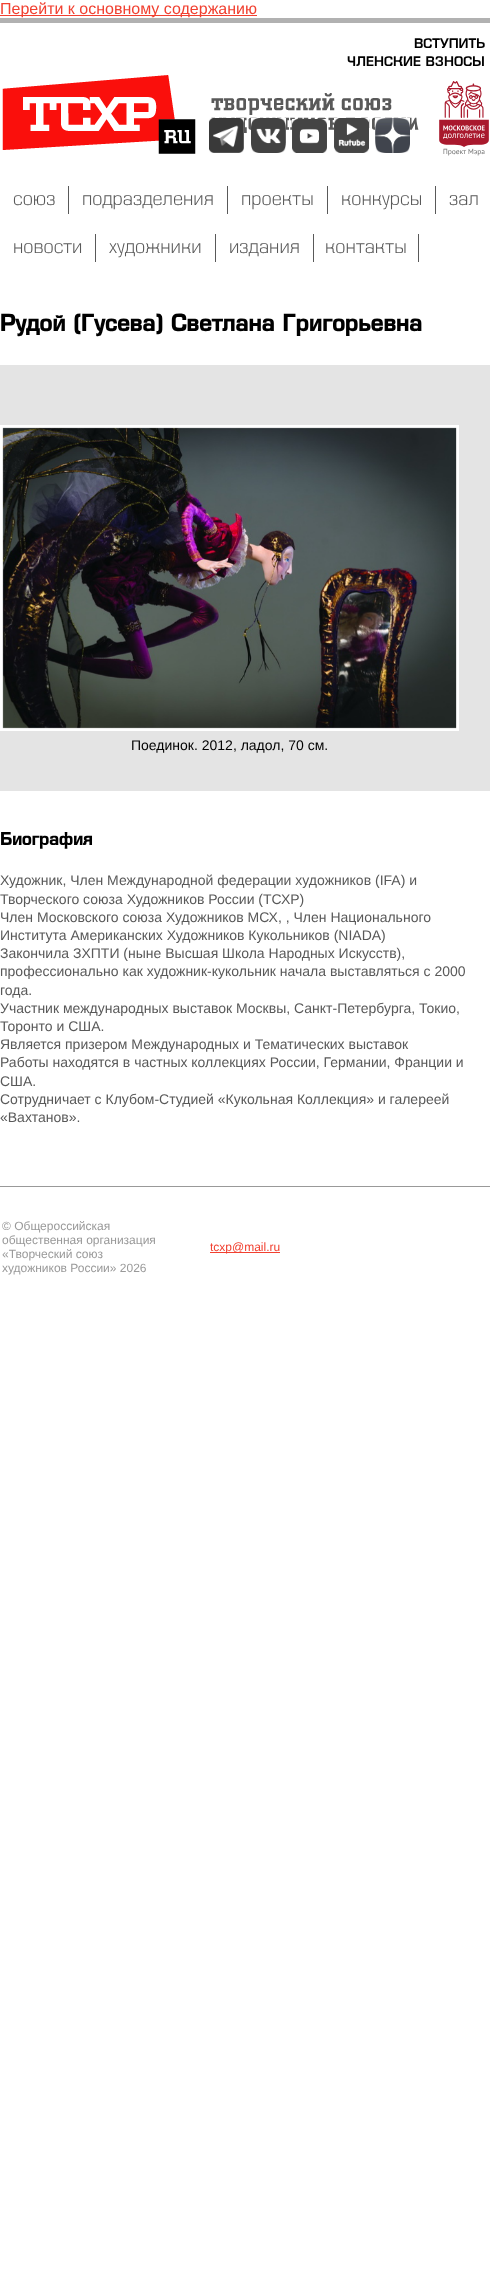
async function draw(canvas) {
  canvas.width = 490;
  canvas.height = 2270;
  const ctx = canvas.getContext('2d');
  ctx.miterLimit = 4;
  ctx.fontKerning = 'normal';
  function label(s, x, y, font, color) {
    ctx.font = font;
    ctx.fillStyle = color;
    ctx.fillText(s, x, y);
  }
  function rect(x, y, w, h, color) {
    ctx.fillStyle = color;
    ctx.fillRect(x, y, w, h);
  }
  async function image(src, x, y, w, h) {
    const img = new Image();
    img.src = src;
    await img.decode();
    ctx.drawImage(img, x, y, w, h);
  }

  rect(0, 0, 490, 2270, '#fff');
  rect(0, 15, 257, 1, '#f14030');
  label('Перейти к основному содержанию', 0, 14, '16px Liberation Sans', '#f14030');
  rect(0, 18, 490, 5, '#b1b1b1');
  label('ВСТУПИТЬ', 414, 48, '500 14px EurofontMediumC', '#000');
  label('ЧЛЕНСКИЕ ВЗНОСЫ', 347, 66, '500 14px EurofontMediumC', '#000');
  await image('assets/img1.png', 2, 75, 417, 79);
  await image('assets/img2.png', 416, 81, 73, 75);
  await image('assets/img3.png', 209, 118, 35, 35);
  await image('assets/img4.png', 251, 118, 35, 35);
  await image('assets/img5.png', 292, 119, 35, 34);
  await image('assets/img6.png', 334, 118, 35, 35);
  await image('assets/img7.png', 375, 118, 35, 35);
  rect(68, 186, 1, 28, '#595959');
  label('союз', 13, 205, '300 20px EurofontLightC', '#595959');
  rect(227, 186, 1, 28, '#595959');
  label('подразделения', 82, 205, '300 20px EurofontLightC', '#595959');
  rect(327, 186, 1, 28, '#595959');
  label('проекты', 241, 205, '300 20px EurofontLightC', '#595959');
  rect(435, 186, 1, 28, '#595959');
  label('конкурсы', 341, 205, '300 20px EurofontLightC', '#595959');
  label('зал', 449, 205, '300 20px EurofontLightC', '#595959');
  rect(95, 234, 1, 28, '#595959');
  label('новости', 13, 253, '300 20px EurofontLightC', '#595959');
  rect(215, 234, 1, 28, '#595959');
  label('художники', 109, 253, '300 20px EurofontLightC', '#595959');
  rect(313, 234, 1, 28, '#595959');
  label('издания', 229, 253, '300 20px EurofontLightC', '#595959');
  rect(418, 234, 1, 28, '#595959');
  label('контакты', 325, 253, '300 20px EurofontLightC', '#595959');
  label('Рудой (Гусева) Светлана Григорьевна', 0, 331, 'bold 24px EurofontMediumC', '#000');
  rect(0, 365, 490, 426, '#e4e4e4');
  ctx.strokeStyle = '#fff';
  ctx.lineWidth = 3;
  ctx.strokeRect(1.5, 426.5, 456, 303);
  await image('assets/img8.png', 2, 427, 455, 302);
  label('Поединок. 2012, ладол, 70 см.', 131, 750, '14px Liberation Sans', '#000');
  label('Биография', 0, 845, 'bold 18px EurofontMediumC', '#000');
  label('Художник, Член Международной федерации художников (IFA) и', 0, 885, '14px Liberation Sans', '#595959');
  label('Творческого союза Художников России (ТСХР)', 0, 904, '14px Liberation Sans', '#595959');
  label('Член Московского союза Художников МСХ, , Член Национального', 0, 922, '14px Liberation Sans', '#595959');
  label('Института Американских Художников Кукольников (NIADA)', 0, 940, '14px Liberation Sans', '#595959');
  label('Закончила ЗХПТИ (ныне Высшая Школа Народных Искусств),', 0, 958, '14px Liberation Sans', '#595959');
  label('профессионально как художник-кукольник начала выставляться с 2000', 0, 976, '14px Liberation Sans', '#595959');
  label('года.', 0, 995, '14px Liberation Sans', '#595959');
  label('Участник международных выставок Москвы, Санкт-Петербурга, Токио,', 0, 1013, '14px Liberation Sans', '#595959');
  label('Торонто и США.', 0, 1031, '14px Liberation Sans', '#595959');
  label('Является призером Международных и Тематических выставок', 0, 1049, '14px Liberation Sans', '#595959');
  label('Работы находятся в частных коллекциях России, Германии, Франции и', 0, 1067, '14px Liberation Sans', '#595959');
  label('США.', 0, 1086, '14px Liberation Sans', '#595959');
  label('Сотрудничает с Клубом-Студией «Кукольная Коллекция» и галереей', 0, 1104, '14px Liberation Sans', '#595959');
  label('«Вахтанов».', 0, 1122, '14px Liberation Sans', '#595959');
  rect(0, 1186, 490, 1, '#999');
  label('© Общероссийская', 2, 1230, '12px Liberation Sans', '#999');
  label('общественная организация', 2, 1244, '12px Liberation Sans', '#999');
  label('«Творческий союз', 2, 1258, '12px Liberation Sans', '#999');
  label('художников России» 2026', 2, 1272, '12px Liberation Sans', '#999');
  rect(210, 1252, 70, 1, '#f14030');
  label('tcxp@mail.ru', 210, 1251, '12px Liberation Sans', '#f14030');
}

draw(document.querySelector('canvas'));
